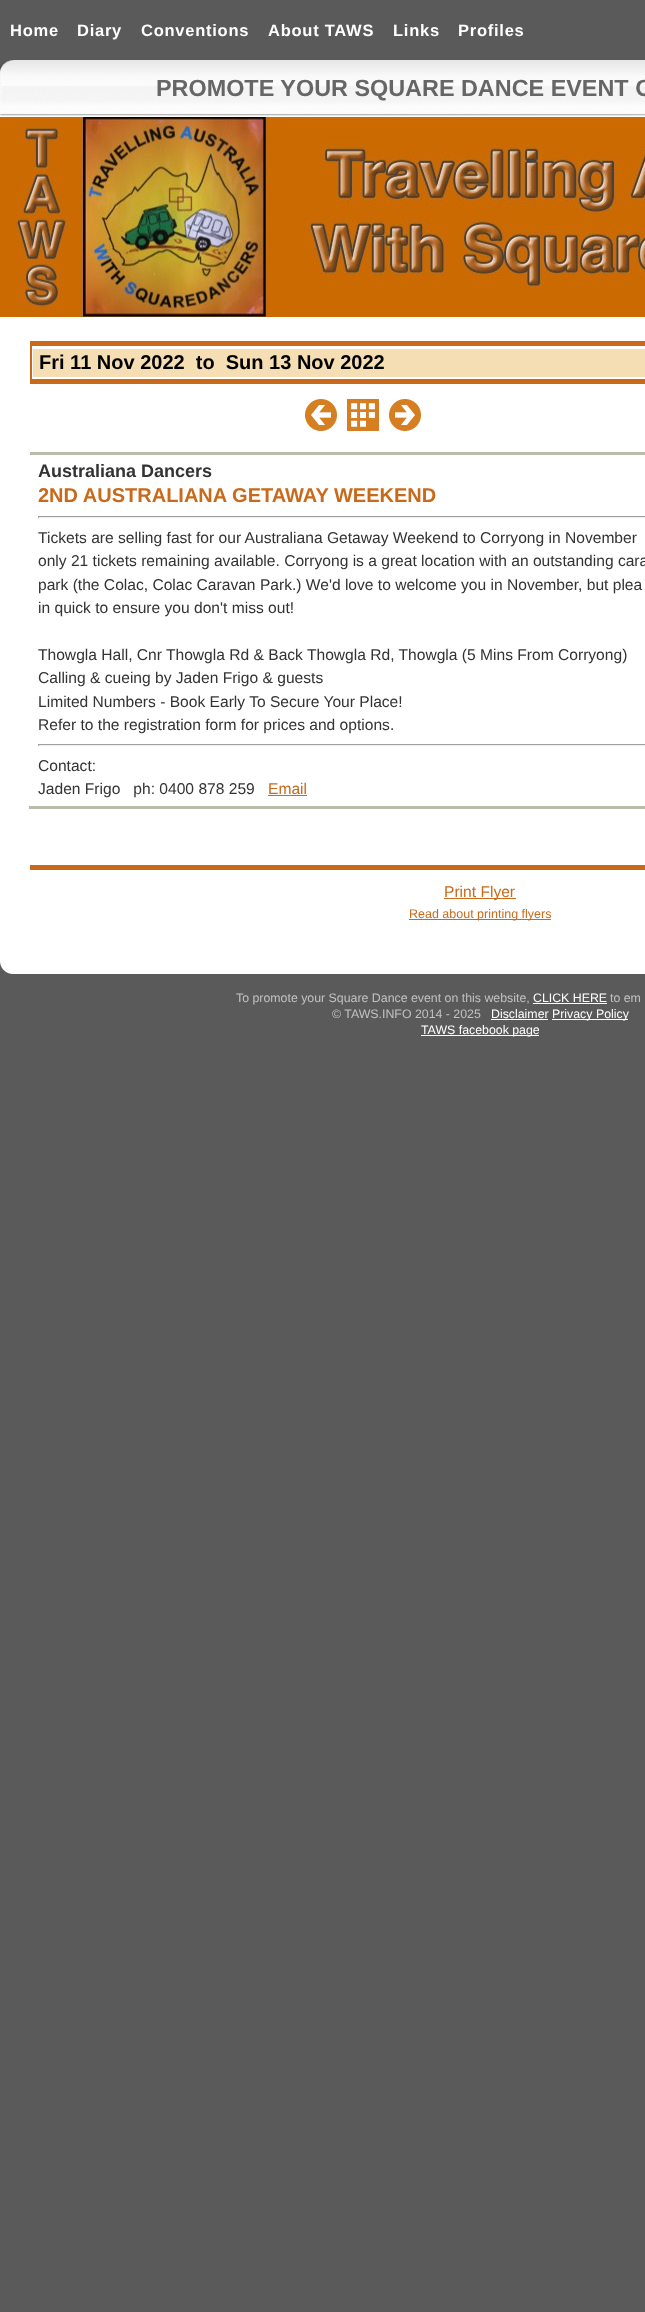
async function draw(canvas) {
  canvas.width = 645;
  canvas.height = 2312;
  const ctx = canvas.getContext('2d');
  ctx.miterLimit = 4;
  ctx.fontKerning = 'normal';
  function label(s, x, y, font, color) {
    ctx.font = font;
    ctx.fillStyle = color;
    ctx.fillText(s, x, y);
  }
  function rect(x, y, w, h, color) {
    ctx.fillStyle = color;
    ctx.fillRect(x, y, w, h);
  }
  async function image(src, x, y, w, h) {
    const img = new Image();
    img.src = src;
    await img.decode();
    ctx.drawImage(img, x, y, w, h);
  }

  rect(0, 0, 645, 2312, '#5a5a5a');
  rect(0, 116, 645, 844, '#fff');
  await image('assets/img1.png', 0, 60, 645, 56);
  ctx.letterSpacing = '0.75px';
  label('Home', 10, 36, 'bold 16.5px Liberation Sans', '#fff');
  label('Diary', 77, 36, 'bold 16.5px Liberation Sans', '#fff');
  label('Conventions', 141, 36, 'bold 16.5px Liberation Sans', '#fff');
  label('About TAWS', 268, 36, 'bold 16.5px Liberation Sans', '#fff');
  label('Links', 393, 36, 'bold 16.5px Liberation Sans', '#fff');
  label('Profiles', 458, 36, 'bold 16.5px Liberation Sans', '#fff');
  await image('assets/img2.png', 0, 117, 645, 200);
  ctx.letterSpacing = '0px';
  label('PROMOTE YOUR SQUARE DANCE EVENT O', 156, 96, 'bold 23.4px Liberation Sans', '#666');
  rect(33, 349, 612, 28, '#f5deb3');
  rect(30, 343, 2, 40, '#c96a1b');
  rect(30, 341, 615, 5, '#c96a1b');
  rect(30, 379, 615, 5, '#c96a1b');
  label('Fri 11 Nov 2022  to  Sun 13 Nov 2022', 39, 369, 'bold 20px Liberation Sans', '#000');
  await image('assets/img3.png', 305, 399, 32, 32);
  await image('assets/img4.png', 347, 399, 32, 32);
  await image('assets/img5.png', 389, 399, 32, 32);
  rect(30, 452, 615, 3, '#bba');
  label('Australiana Dancers', 38, 477, 'bold 18px Liberation Sans', '#333');
  label('2ND AUSTRALIANA GETAWAY WEEKEND', 38, 502, 'bold 20px Liberation Sans', '#c96a1b');
  rect(38, 516, 607, 1, '#9f9f9f');
  rect(38, 517, 607, 1, '#eee');
  rect(38, 516, 1, 2, '#9f9f9f');
  label('Tickets are selling fast for our Australiana Getaway Weekend to Corryong in November', 38, 543, '15.6px Liberation Sans', '#333');
  label('only 21 tickets remaining available. Corryong is a great location with an outstanding cara', 38, 566, '15.6px Liberation Sans', '#333');
  label('park (the Colac, Colac Caravan Park.) We\'d love to welcome you in November, but plea', 38, 590, '15.6px Liberation Sans', '#333');
  label('in quick to ensure you don\'t miss out!', 38, 613, '15.6px Liberation Sans', '#333');
  label('Thowgla Hall, Cnr Thowgla Rd & Back Thowgla Rd, Thowgla (5 Mins From Corryong)', 38, 660, '15.6px Liberation Sans', '#333');
  label('Calling & cueing by Jaden Frigo & guests', 38, 683, '15.6px Liberation Sans', '#333');
  label('Limited Numbers - Book Early To Secure Your Place!', 38, 707, '15.6px Liberation Sans', '#333');
  label('Refer to the registration form for prices and options.', 38, 730, '15.6px Liberation Sans', '#333');
  rect(38, 744, 607, 1, '#9f9f9f');
  rect(38, 745, 607, 1, '#eee');
  rect(38, 744, 1, 2, '#9f9f9f');
  label('Contact:', 38, 771, '15.6px Liberation Sans', '#333');
  label('Jaden Frigo   ph: 0400 878 259', 38, 794, '15.6px Liberation Sans', '#333');
  label('Email', 268, 794, '15.6px Liberation Sans', '#c96a1b');
  rect(268, 795, 39, 1, '#c96a1b');
  rect(30, 865, 615, 5, '#c96a1b');
  rect(29, 806, 616, 3, '#bba');
  rect(444, 898, 72, 1, '#c96a1b');
  label('Print Flyer', 444, 897, '15.6px Liberation Sans', '#c96a1b');
  rect(409, 919, 142, 1, '#c96a1b');
  label('Read about printing flyers', 409, 918, '12.5px Liberation Sans', '#c96a1b');
  await image('assets/img6.png', 0, 960, 645, 14);
  label('To promote your Square Dance event on this website,', 236, 1002, '12.35px Liberation Sans', '#c2c2c2');
  label('CLICK HERE', 533, 1002, '12.35px Liberation Sans', '#fff');
  rect(533, 1003, 74, 1, '#fff');
  label('to em', 610, 1002, '12.35px Liberation Sans', '#c2c2c2');
  label('© TAWS.INFO 2014 - 2025', 332, 1018, '12.35px Liberation Sans', '#c2c2c2');
  label('Disclaimer', 491, 1018, '12.35px Liberation Sans', '#fff');
  rect(491, 1019, 57, 1, '#fff');
  rect(552, 1019, 76, 1, '#fff');
  label('Privacy Policy', 552, 1018, '12.35px Liberation Sans', '#fff');
  rect(421, 1035, 118, 1, '#fff');
  label('TAWS facebook page', 421, 1034, '12.35px Liberation Sans', '#fff');
}

draw(document.querySelector('canvas'));
